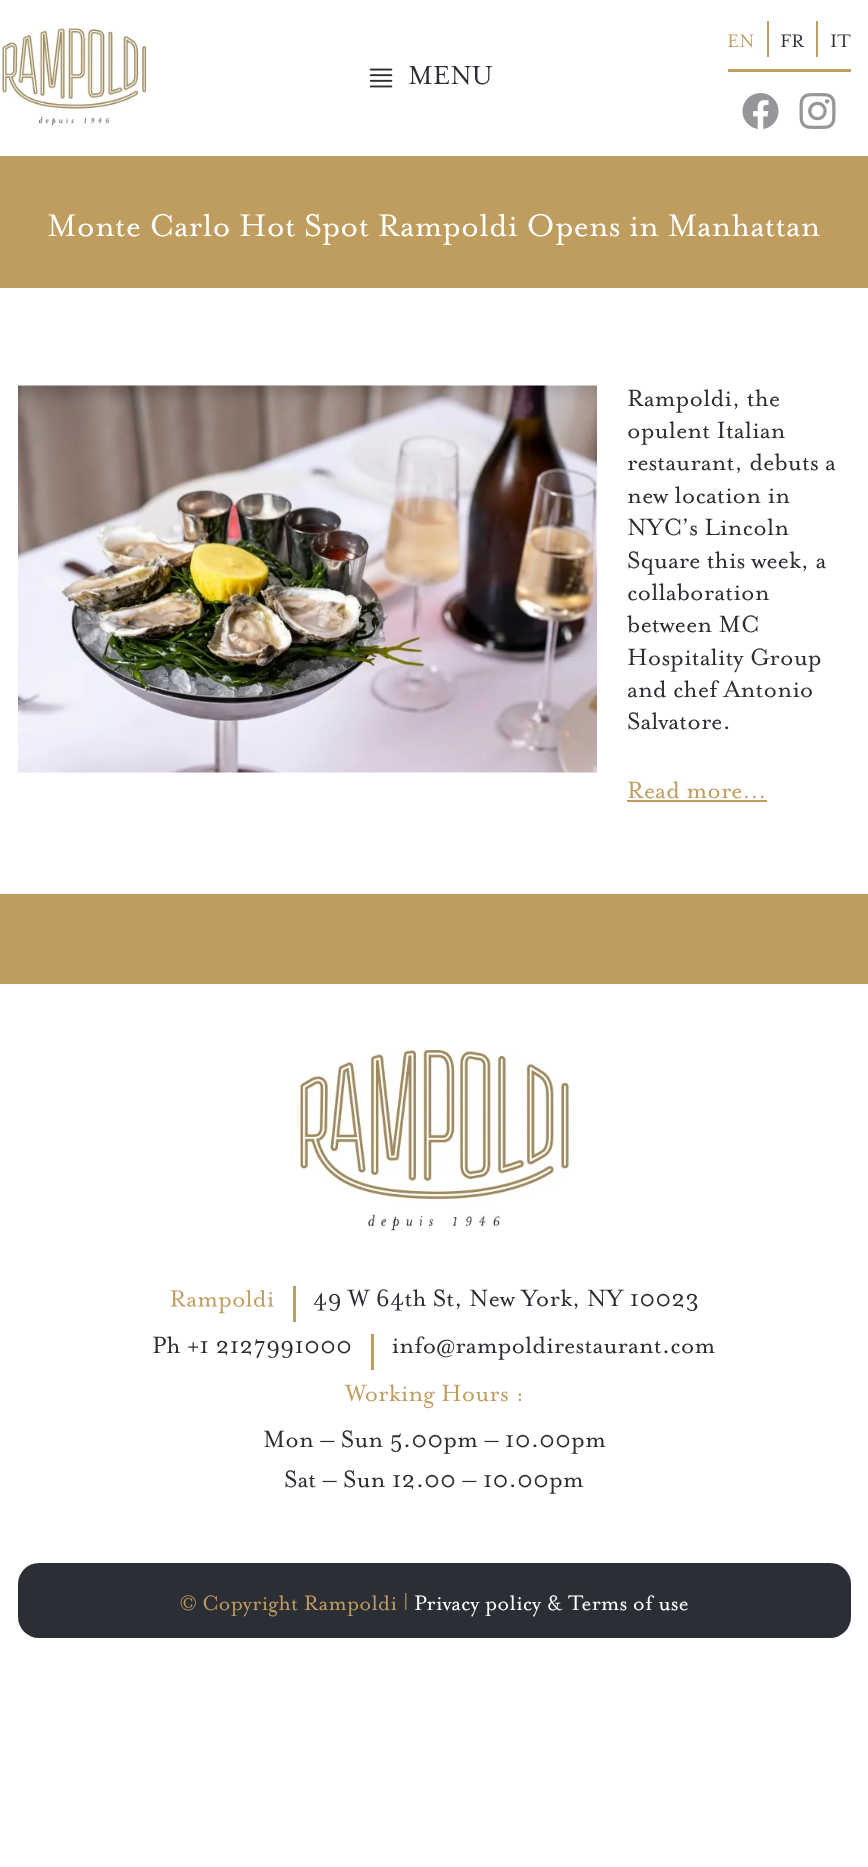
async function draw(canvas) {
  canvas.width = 868;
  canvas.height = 1867;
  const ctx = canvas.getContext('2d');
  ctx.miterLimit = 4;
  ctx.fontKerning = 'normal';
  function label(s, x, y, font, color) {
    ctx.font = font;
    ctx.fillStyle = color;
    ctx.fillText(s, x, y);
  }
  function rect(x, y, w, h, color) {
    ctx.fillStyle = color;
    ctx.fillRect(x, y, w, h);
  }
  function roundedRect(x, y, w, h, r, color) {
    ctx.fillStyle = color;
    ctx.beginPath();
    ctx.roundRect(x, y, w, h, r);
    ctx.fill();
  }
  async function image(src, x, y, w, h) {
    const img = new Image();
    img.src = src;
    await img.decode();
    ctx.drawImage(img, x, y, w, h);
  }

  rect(0, 0, 868, 1867, '#fff');
  await image('assets/img1.png', 0, 28, 148, 98);
  rect(767, 21, 2, 36, '#bf9d5e');
  label('EN', 727, 47, '21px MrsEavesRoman', '#bf9d5e');
  rect(816, 21, 2, 36, '#bf9d5e');
  label('FR', 780, 47, '21px MrsEavesRoman', '#2b2e34');
  label('IT', 830, 47, '21px MrsEavesRoman', '#2b2e34');
  rect(728, 69, 123, 3, '#bf9d5e');
  await image('assets/img2.png', 742, 93, 37, 36);
  await image('assets/img3.png', 799, 93, 37, 36);
  await image('assets/img4.png', 369, 68, 24, 20);
  await image('assets/img5.png', 409, 66, 84, 19);
  rect(0, 156, 868, 132, '#bf9d5e');
  label('Monte Carlo Hot Spot Rampoldi Opens in Manhattan', 47, 236, '36px MrsEavesRoman', '#fff');
  await image('assets/img6.png', 18, 385, 579, 388);
  label('Rampoldi, the', 627, 406, '27px MrsEavesRoman', '#2b2e34');
  label('opulent Italian', 627, 438, '27px MrsEavesRoman', '#2b2e34');
  label('restaurant, debuts a', 627, 470, '27px MrsEavesRoman', '#2b2e34');
  label('new location in', 627, 503, '27px MrsEavesRoman', '#2b2e34');
  label('NYC’s Lincoln', 627, 535, '27px MrsEavesRoman', '#2b2e34');
  label('Square this week, a', 627, 568, '27px MrsEavesRoman', '#2b2e34');
  label('collaboration', 627, 600, '27px MrsEavesRoman', '#2b2e34');
  label('between MC', 627, 632, '27px MrsEavesRoman', '#2b2e34');
  label('Hospitality Group', 627, 665, '27px MrsEavesRoman', '#2b2e34');
  label('and chef Antonio', 627, 697, '27px MrsEavesRoman', '#2b2e34');
  label('Salvatore.', 627, 729, '27px MrsEavesRoman', '#2b2e34');
  label('Read more…', 627, 798, '27px MrsEavesRoman', '#bf9d5e');
  rect(627, 800, 140, 2, '#bf9d5e');
  rect(0, 894, 868, 90, '#bf9d5e');
  await image('assets/img7.png', 296, 1050, 276, 181);
  await image('assets/img8.png', 170, 1289, 104, 25);
  rect(293, 1286, 3, 36, '#bf9d5e');
  label('49 W 64th St, New York, NY 10023', 313, 1306, '27px MrsEavesRoman', '#2b2e34');
  label('Ph +1 2127991000', 152, 1353, '27px MrsEavesRoman', '#2b2e34');
  rect(371, 1334, 3, 36, '#bf9d5e');
  await image('assets/img9.png', 392, 1336, 323, 24);
  await image('assets/img10.png', 344, 1384, 178, 25);
  label('Mon – Sun 5.00pm – 10.00pm', 263, 1447, '27px MrsEavesRoman', '#2b2e34');
  label('Sat – Sun 12.00 – 10.00pm', 284, 1487, '27px MrsEavesRoman', '#2b2e34');
  roundedRect(18, 1563, 833, 75, 21, '#2b2e34');
  label('© Copyright Rampoldi |', 180, 1610, '24px MrsEavesRoman', '#bf9d5e');
  label('Privacy policy & Terms of use', 414, 1610, '24px MrsEavesRoman', '#fff');
}

draw(document.querySelector('canvas'));
